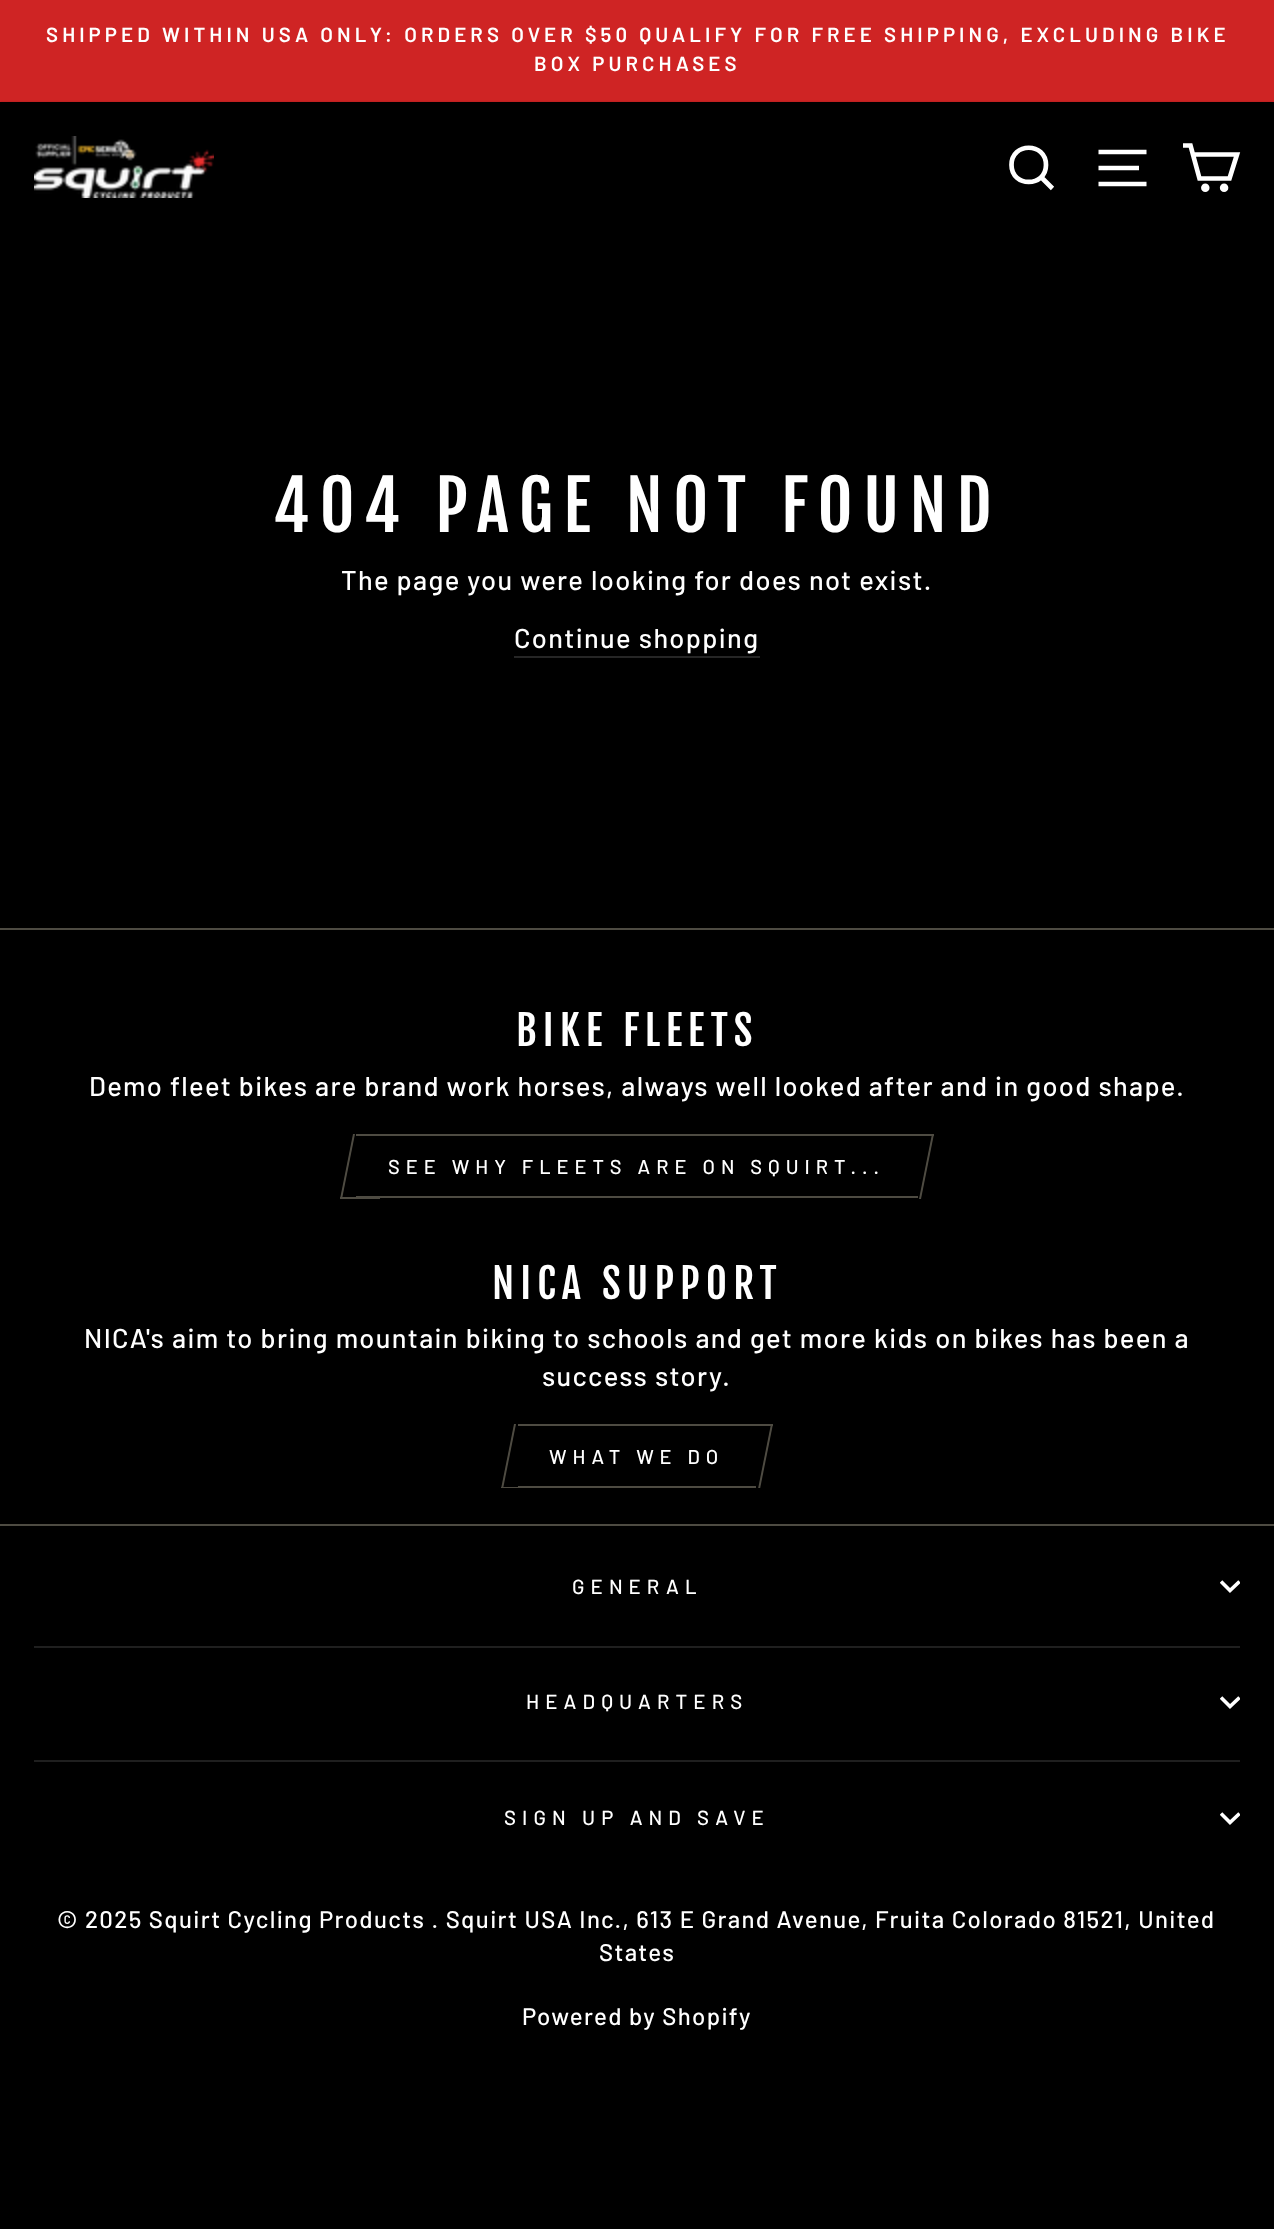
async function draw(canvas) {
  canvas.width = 1274;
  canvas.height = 2229;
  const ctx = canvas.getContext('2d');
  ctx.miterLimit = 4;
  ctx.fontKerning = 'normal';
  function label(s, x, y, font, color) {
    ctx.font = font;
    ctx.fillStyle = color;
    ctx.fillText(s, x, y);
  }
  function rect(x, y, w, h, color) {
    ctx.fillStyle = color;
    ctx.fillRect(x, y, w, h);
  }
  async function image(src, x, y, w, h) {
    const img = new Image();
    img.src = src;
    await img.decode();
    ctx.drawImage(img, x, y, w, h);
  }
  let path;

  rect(0, 0, 1274, 2229, '#000');
  rect(0, 0, 1274, 102, '#cf2424');
  ctx.letterSpacing = '4.08px';
  label('SHIPPED WITHIN USA ONLY: ORDERS OVER $50 QUALIFY FOR FREE SHIPPING, EXCLUDING BIKE', 46, 42, '600 20.4px Barlow', '#fff');
  label('BOX PURCHASES', 534, 71, '600 20.4px Barlow', '#fff');
  ctx.save();
  path = new Path2D('M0 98H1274V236H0ZM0 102H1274V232H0Z');
  ctx.clip(path, 'evenodd');
  ctx.fillStyle = '#00000033';
  ctx.filter = 'blur(1px)';
  ctx.beginPath();
  ctx.rect(0, 102, 1274, 130);
  ctx.fill();
  ctx.filter = 'none';
  ctx.restore();
  await image('assets/img1.png', 34, 136, 180, 62);
  path = new Path2D('M1046 165C1046 187.5 1011.5 187.5 1011.5 165C1011.5 142 1046 142 1046 165ZM1052.5 188.5L1041.5 177.5');
  ctx.strokeStyle = '#fff';
  ctx.lineWidth = 4.7;
  ctx.stroke(path);
  path = new Path2D('M1098.5 152H1146.5M1098.5 168H1139M1098.5 184H1146.5');
  ctx.stroke(path);
  path = new Path2D('M1193 154.5H1237L1229.5 178.5H1199.5L1190.5 145.5H1183');
  ctx.stroke(path);
  ctx.beginPath();
  ctx.arc(1205.3, 187.7, 1.9, 0, 2 * Math.PI);
  ctx.fill();
  ctx.stroke();
  ctx.beginPath();
  ctx.arc(1224.1, 187.7, 1.9, 0, 2 * Math.PI);
  ctx.fill();
  ctx.stroke();
  ctx.letterSpacing = '10.25px';
  label('404 PAGE NOT FOUND', 273, 532, '68px Fjalla One', '#fff');
  ctx.letterSpacing = '1.35px';
  label('The page you were looking for does not exist.', 341, 590, '500 27.2px Barlow', '#fff');
  rect(514, 656, 246, 2, '#262626');
  label('Continue shopping', 514, 648, '500 27.2px Barlow', '#fff');
  rect(0, 928, 1274, 2, '#4e4b42');
  ctx.letterSpacing = '6.1px';
  label('BIKE FLEETS', 516, 1046, '40.75px Fjalla One', '#fff');
  ctx.letterSpacing = '1.35px';
  label('Demo fleet bikes are brand work horses, always well looked after and in good shape.', 89, 1096, '500 27.2px Barlow', '#fff');
  rect(356, 1134, 578, 2, '#4e4b42');
  rect(356, 1196, 562, 2, '#4e4b42');
  rect(340, 1197, 40, 2, '#4e4b42');
  path = new Path2D('M353 1134H355L342 1199H340Z');
  ctx.fill(path);
  ctx.letterSpacing = '6px';
  label('SEE WHY FLEETS ARE ON SQUIRT...', 388, 1174, '500 20px Barlow', '#fff');
  ctx.fillStyle = '#4e4b42';
  path = new Path2D('M932 1134H934L921 1199H919Z');
  ctx.fill(path);
  ctx.letterSpacing = '6.1px';
  label('NICA SUPPORT', 492, 1299, '40.75px Fjalla One', '#fff');
  ctx.letterSpacing = '1.35px';
  label('NICA\'s aim to bring mountain biking to schools and get more kids on bikes has been a', 84, 1348, '500 27.2px Barlow', '#fff');
  label('success story.', 542, 1386, '500 27.2px Barlow', '#fff');
  rect(518, 1424, 255, 2, '#4e4b42');
  rect(518, 1486, 238, 2, '#4e4b42');
  rect(501, 1487, 17, 1, '#4e4b42');
  ctx.save();
  ctx.beginPath();
  ctx.rect(0, 1010, 1240, 478);
  ctx.clip();
  path = new Path2D('M514 1424H516L503 1489H501Z');
  ctx.fill(path);
  ctx.restore();
  ctx.letterSpacing = '6px';
  label('WHAT WE DO', 549, 1464, '500 20px Barlow', '#fff');
  ctx.save();
  ctx.beginPath();
  ctx.rect(0, 1010, 1240, 478);
  ctx.clip();
  ctx.fillStyle = '#4e4b42';
  path = new Path2D('M771 1424H773L760 1489H758Z');
  ctx.fill(path);
  ctx.restore();
  rect(0, 1524, 1274, 2, '#4e4b42');
  ctx.letterSpacing = '6.1px';
  label('GENERAL', 572, 1594, '500 20.4px Barlow', '#fff');
  ctx.save();
  ctx.beginPath();
  ctx.rect(1220, 1576, 20, 20);
  ctx.clip();
  path = new Path2D('M1221 1581.5L1230 1590.5L1239.5 1581.5');
  ctx.lineWidth = 3.6;
  ctx.stroke(path);
  ctx.restore();
  rect(34, 1646, 1206, 2, '#1f1f1f');
  label('HEADQUARTERS', 526, 1709, '500 20.4px Barlow', '#fff');
  ctx.save();
  ctx.beginPath();
  ctx.rect(1220, 1692, 20, 20);
  ctx.clip();
  path = new Path2D('M1221 1697.5L1230 1706.5L1239.5 1697.5');
  ctx.lineWidth = 3.6;
  ctx.stroke(path);
  ctx.restore();
  rect(34, 1760, 1206, 2, '#1f1f1f');
  label('SIGN UP AND SAVE', 504, 1825, '500 20.4px Barlow', '#fff');
  ctx.save();
  ctx.beginPath();
  ctx.rect(1220, 1808, 20, 20);
  ctx.clip();
  path = new Path2D('M1221 1813.5L1230 1822.5L1239.5 1813.5');
  ctx.lineWidth = 3.6;
  ctx.stroke(path);
  ctx.restore();
  ctx.letterSpacing = '1.35px';
  label('© 2025 Squirt Cycling Products . Squirt USA Inc., 613 E Grand Avenue, Fruita Colorado 81521, United', 57, 1928, '500 24px Barlow', '#fff');
  label('States', 599, 1961, '500 24px Barlow', '#fff');
  label('Powered by Shopify', 522, 2025, '500 24px Barlow', '#fff');
}

draw(document.querySelector('canvas'));
